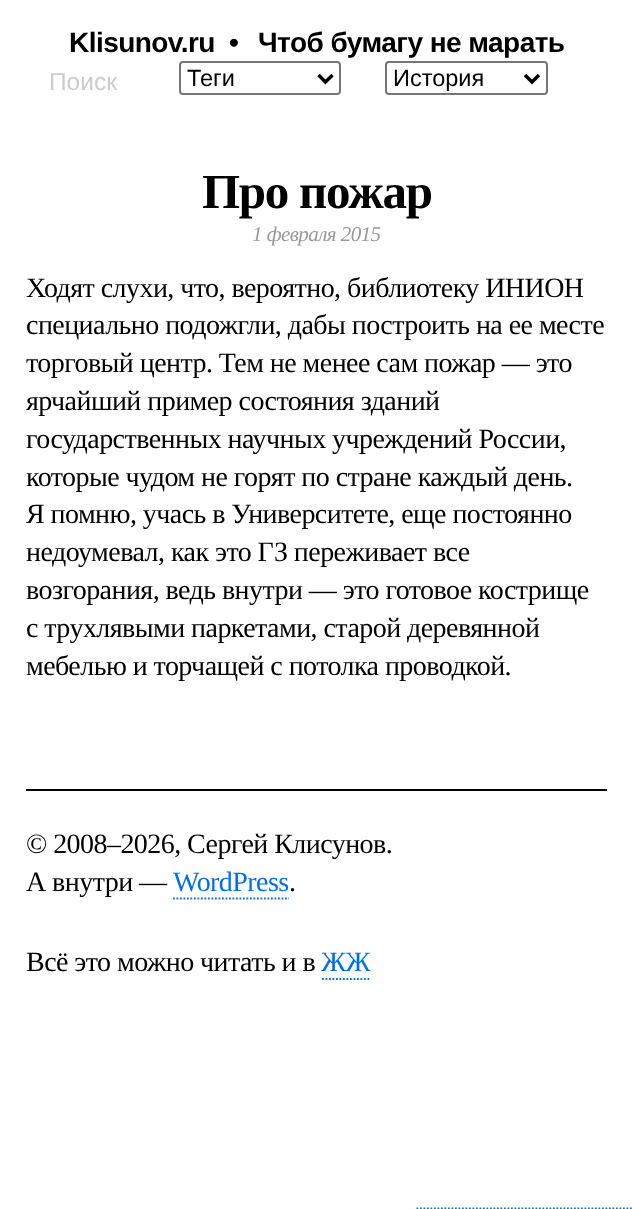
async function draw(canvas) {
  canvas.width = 632;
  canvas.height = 1209;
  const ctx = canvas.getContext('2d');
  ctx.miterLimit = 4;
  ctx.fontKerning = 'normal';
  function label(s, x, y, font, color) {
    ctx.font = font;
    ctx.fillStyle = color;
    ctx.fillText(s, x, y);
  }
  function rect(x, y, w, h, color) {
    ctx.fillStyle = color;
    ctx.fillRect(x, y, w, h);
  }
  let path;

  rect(0, 0, 632, 1209, '#fff');
  ctx.letterSpacing = '-0.55px';
  label('Klisunov.ru', 69, 52, 'bold 28px Liberation Sans', '#000');
  label('•', 229, 52, 'bold 28px Liberation Sans', '#000');
  label('Чтоб бумагу не марать', 258, 52, 'bold 28px Liberation Sans', '#000');
  ctx.letterSpacing = '0px';
  label('Поиск', 49, 90, '24.5px Liberation Sans', '#ccc');
  ctx.beginPath();
  ctx.roundRect(180, 62, 160, 32, 3);
  ctx.strokeStyle = '#767676';
  ctx.lineWidth = 2;
  ctx.stroke();
  path = new Path2D('M318.5 75L325.5 82L332.5 75');
  ctx.strokeStyle = '#000';
  ctx.lineWidth = 3.5;
  ctx.stroke(path);
  label('Теги', 187, 86, '23.5px Liberation Sans', '#000');
  ctx.beginPath();
  ctx.roundRect(386, 62, 161, 32, 3);
  ctx.strokeStyle = '#767676';
  ctx.lineWidth = 2;
  ctx.stroke();
  path = new Path2D('M525 75L532 82L539 75');
  ctx.strokeStyle = '#000';
  ctx.lineWidth = 3.5;
  ctx.stroke(path);
  label('История', 393, 86, '23.5px Liberation Sans', '#000');
  ctx.letterSpacing = '-1.25px';
  label('Про пожар', 202, 208, 'bold 49px Liberation Serif', '#000');
  ctx.letterSpacing = '-0.55px';
  label('1 февраля 2015', 252, 241, 'italic 21px Liberation Serif', '#999');
  label('Ходят слухи, что, вероятно, библиотеку ИНИОН', 26, 297, '28px Liberation Serif', '#000');
  label('специально подожгли, дабы построить на ее месте', 26, 334, '28px Liberation Serif', '#000');
  label('торговый центр. Тем не менее сам пожар — это', 26, 372, '28px Liberation Serif', '#000');
  label('ярчайший пример состояния зданий', 26, 410, '28px Liberation Serif', '#000');
  label('государственных научных учреждений России,', 26, 448, '28px Liberation Serif', '#000');
  label('которые чудом не горят по стране каждый день.', 26, 486, '28px Liberation Serif', '#000');
  label('Я помню, учась в Университете, еще постоянно', 26, 523, '28px Liberation Serif', '#000');
  label('недоумевал, как это ГЗ переживает все', 26, 561, '28px Liberation Serif', '#000');
  label('возгорания, ведь внутри — это готовое кострище', 26, 599, '28px Liberation Serif', '#000');
  label('с трухлявыми паркетами, старой деревянной', 26, 637, '28px Liberation Serif', '#000');
  label('мебелью и торчащей с потолка проводкой.', 26, 675, '28px Liberation Serif', '#000');
  rect(26, 789, 581, 2, '#000');
  label('© 2008–2026, Сергей Клисунов.', 26, 853, '28px Liberation Serif', '#000');
  label('А внутри —', 26, 891, '28px Liberation Serif', '#000');
  label('WordPress', 173, 891, '28px Liberation Serif', '#0070e6');
  path = new Path2D('M173 898.5H289');
  ctx.strokeStyle = '#0070e6';
  ctx.lineWidth = 1.8;
  ctx.setLineDash([1.75, 1.75]);
  ctx.stroke(path);
  label('.', 289, 891, '28px Liberation Serif', '#000');
  label('Всё это можно читать и в', 26, 971, '28px Liberation Serif', '#000');
  label('ЖЖ', 321, 971, '28px Liberation Serif', '#0070e6');
  path = new Path2D('M322 979H371');
  ctx.stroke(path);
  path = new Path2D('M416.5 1208.5H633.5');
  ctx.stroke(path);
}

draw(document.querySelector('canvas'));
